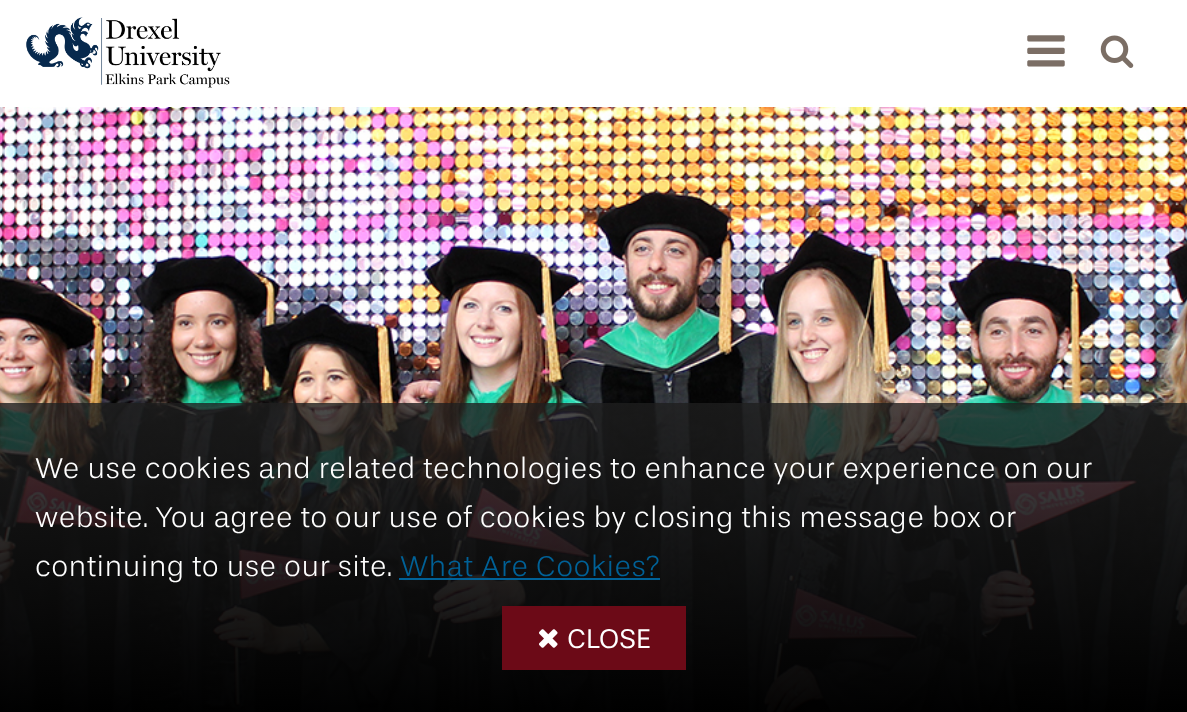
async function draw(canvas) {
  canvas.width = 1187;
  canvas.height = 712;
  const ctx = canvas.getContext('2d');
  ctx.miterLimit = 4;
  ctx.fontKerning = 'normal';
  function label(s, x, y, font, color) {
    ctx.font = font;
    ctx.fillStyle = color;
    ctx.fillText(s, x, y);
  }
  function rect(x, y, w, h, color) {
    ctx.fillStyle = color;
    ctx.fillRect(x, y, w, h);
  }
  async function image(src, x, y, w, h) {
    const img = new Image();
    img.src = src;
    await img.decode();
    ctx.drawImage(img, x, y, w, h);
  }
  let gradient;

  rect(0, 0, 1187, 712, '#fff');
  await image('assets/img1.png', 26, 17, 204, 71);
  await image('assets/img2.png', 1027, 35, 38, 32);
  await image('assets/img3.png', 1100, 35, 34, 33);
  await image('assets/img4.png', 0, 107, 1187, 605);
  gradient = ctx.createLinearGradient(594, 712, 594, 403);
  gradient.addColorStop(0, '#000000f2');
  gradient.addColorStop(1, '#1e1e1ecc');
  ctx.fillStyle = gradient;
  ctx.fillRect(0, 403, 1187, 309);
  ctx.letterSpacing = '0.3px';
  label('We use cookies and related technologies to enhance your experience on our', 35, 478, '300 29.75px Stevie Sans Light', '#fff');
  label('website. You agree to our use of cookies by closing this message box or', 35, 527, '300 29.75px Stevie Sans Light', '#fff');
  label('continuing to use our site.', 35, 576, '300 29.75px Stevie Sans Light', '#fff');
  label('What Are Cookies?', 400, 576, '300 29.75px Stevie Sans Light', '#006197');
  rect(399, 578, 261, 2, '#006197');
  rect(502, 606, 184, 64, '#6c0a17');
  await image('assets/img5.png', 539, 629, 19, 19);
  ctx.letterSpacing = '0px';
  label('CLOSE', 567, 648, '28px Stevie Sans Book', '#fff');
}

draw(document.querySelector('canvas'));
